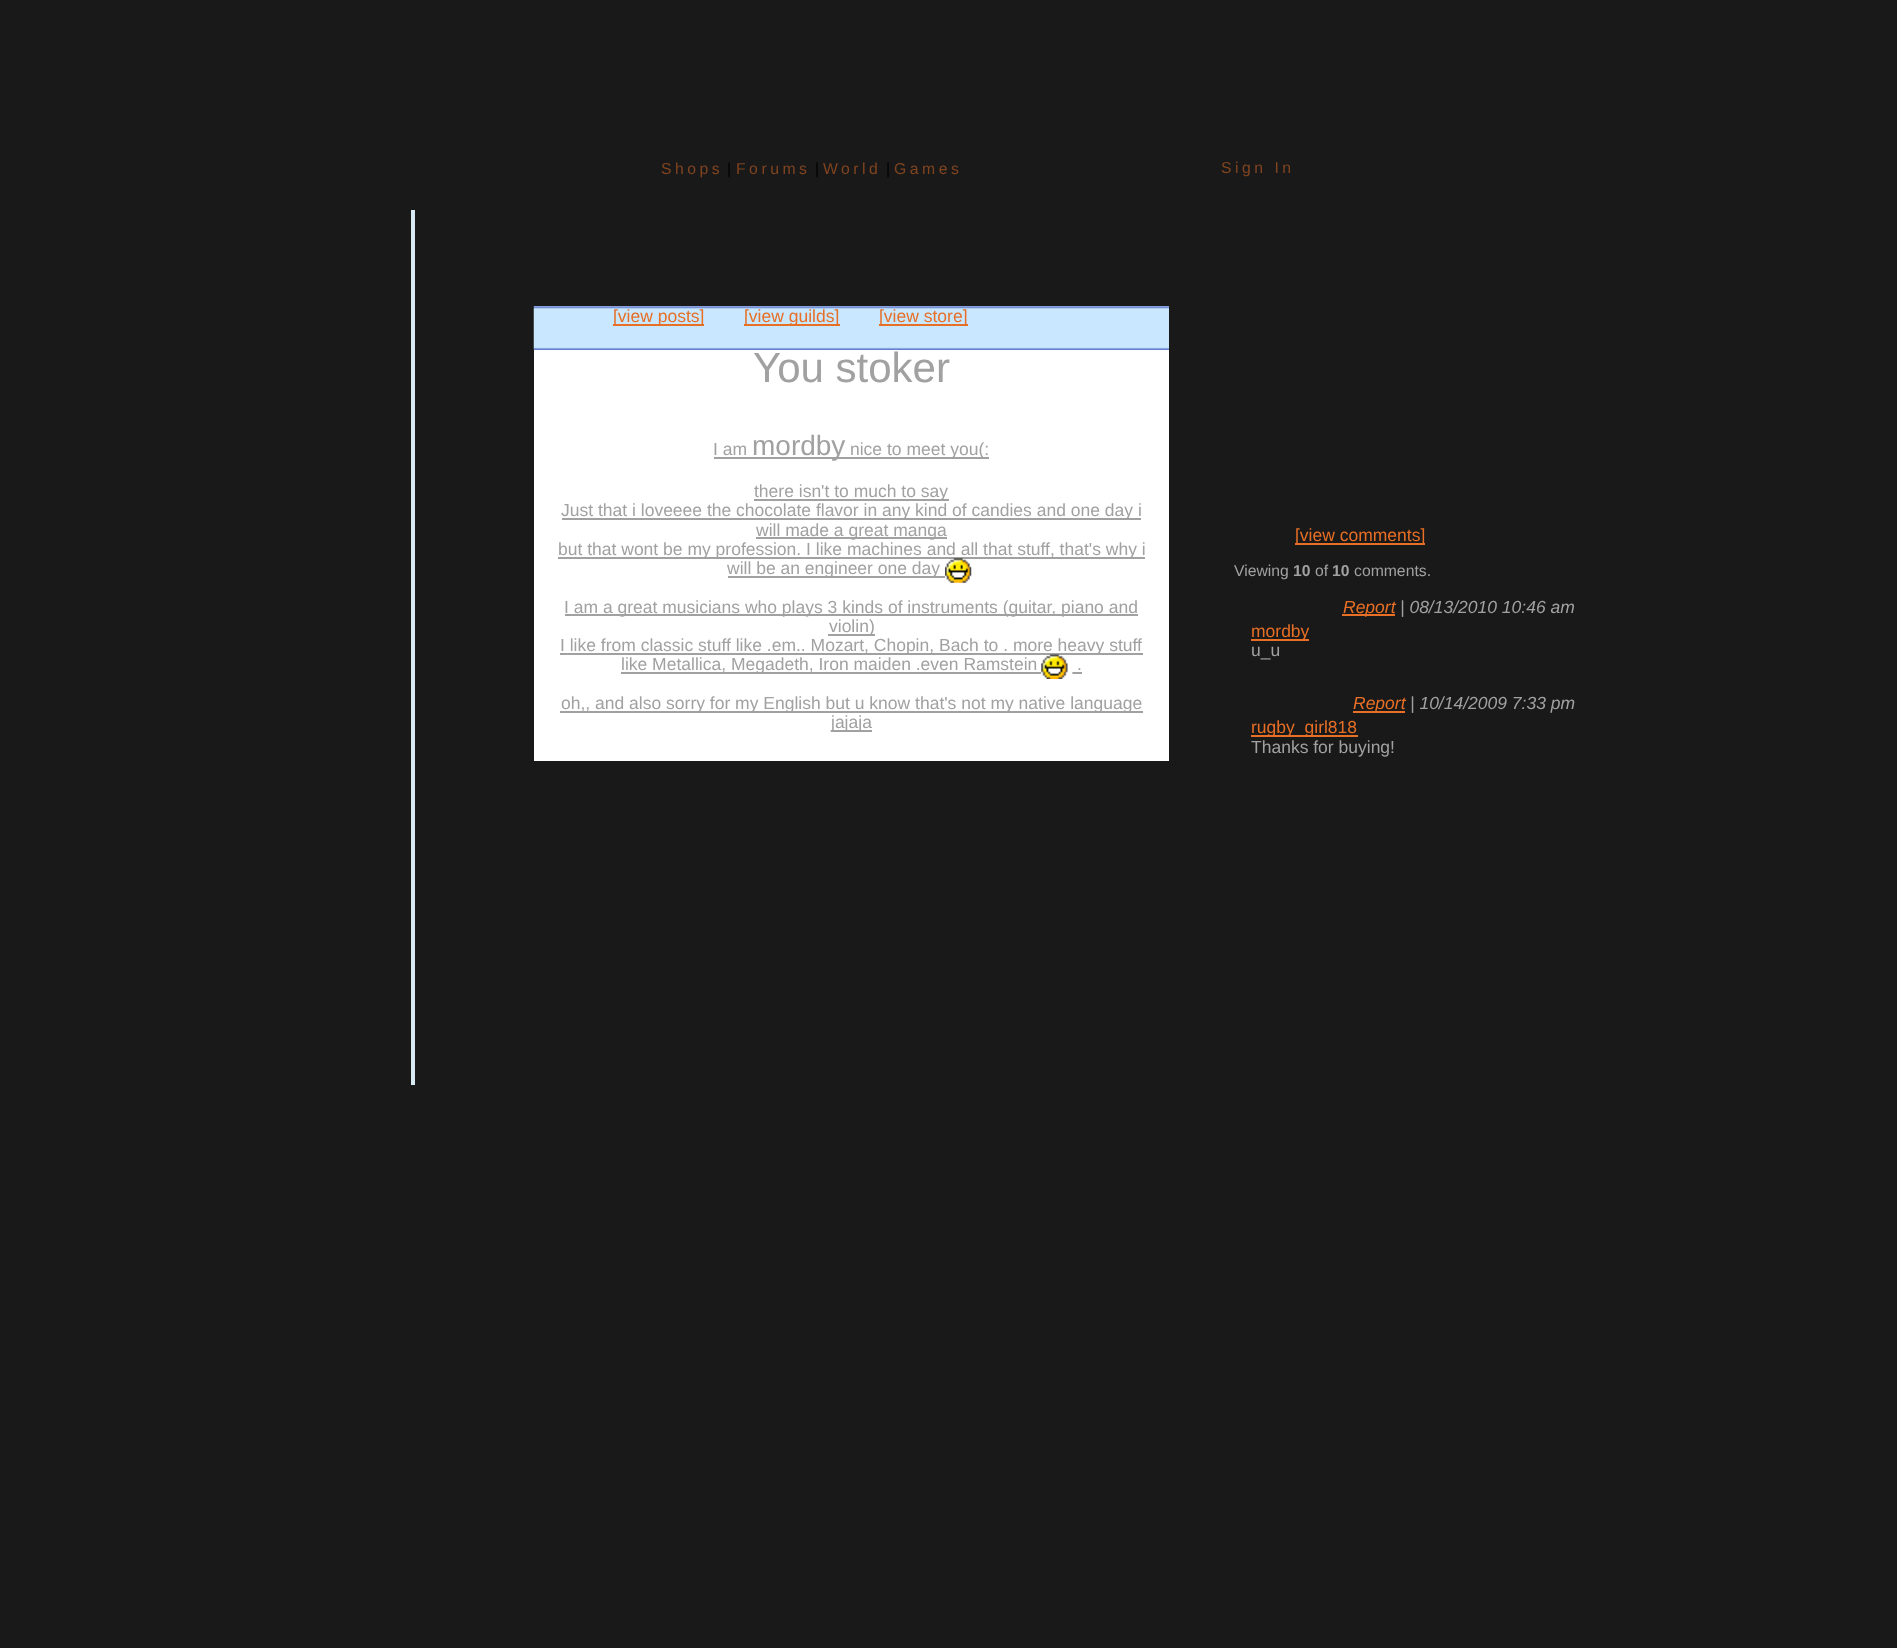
async function draw(canvas) {
  canvas.width = 1897;
  canvas.height = 1648;
  const ctx = canvas.getContext('2d');
  ctx.miterLimit = 4;
  ctx.fontKerning = 'normal';
  function label(s, x, y, font, color) {
    ctx.font = font;
    ctx.fillStyle = color;
    ctx.fillText(s, x, y);
  }
  function rect(x, y, w, h, color) {
    ctx.fillStyle = color;
    ctx.fillRect(x, y, w, h);
  }
  async function image(src, x, y, w, h) {
    const img = new Image();
    img.src = src;
    await img.decode();
    ctx.drawImage(img, x, y, w, h);
  }

  rect(0, 0, 1897, 1648, '#1a1919');
  ctx.letterSpacing = '3.5px';
  label('Shops', 661, 174, '15.75px Liberation Sans', '#814420');
  ctx.letterSpacing = '0px';
  label('|', 727, 174, '15.75px Liberation Sans', '#000');
  ctx.letterSpacing = '3.5px';
  label('Forums', 736, 174, '15.75px Liberation Sans', '#814420');
  ctx.letterSpacing = '0px';
  label('|', 815, 174, '15.75px Liberation Sans', '#000');
  ctx.letterSpacing = '3.5px';
  label('World', 823, 174, '15.75px Liberation Sans', '#814420');
  ctx.letterSpacing = '0px';
  label('|', 886, 174, '15.75px Liberation Sans', '#000');
  ctx.letterSpacing = '3.5px';
  label('Games', 894, 174, '15.75px Liberation Sans', '#814420');
  label('Sign In', 1221, 173, '15.75px Liberation Sans', '#814420');
  rect(411, 210, 4, 875, '#d8e9f3');
  rect(534, 306, 635, 455, '#fff');
  await image('assets/img1.png', 533, 306, 636, 44);
  rect(613, 324, 91, 2, '#e76f26');
  ctx.letterSpacing = '0px';
  label('[view posts]', 613, 322, '17.5px Liberation Sans', '#e76f26');
  rect(744, 324, 96, 2, '#e76f26');
  label('[view guilds]', 744, 322, '17.5px Liberation Sans', '#e76f26');
  rect(879, 324, 89, 2, '#e76f26');
  label('[view store]', 879, 322, '17.5px Liberation Sans', '#e76f26');
  label('You stoker', 753, 382, '42px Liberation Sans', '#a1a1a1');
  label('I am', 713, 455, '17.5px Liberation Sans', '#a1a1a1');
  rect(714, 457, 131, 2, '#a1a1a1');
  label('mordby', 752, 455, '28px Liberation Sans', '#a1a1a1');
  rect(845, 457, 144, 2, '#a1a1a1');
  label('nice to meet you(:', 850, 455, '17.5px Liberation Sans', '#a1a1a1');
  rect(754, 499, 195, 2, '#a1a1a1');
  label('there isn\'t to much to say', 754, 497, '17.5px Liberation Sans', '#a1a1a1');
  rect(562, 518, 579, 2, '#a1a1a1');
  label('Just that i loveeee the chocolate flavor in any kind of candies and one day i', 561, 516, '17.5px Liberation Sans', '#a1a1a1');
  rect(756, 537, 191, 2, '#a1a1a1');
  label('will made a great manga', 756, 536, '17.5px Liberation Sans', '#a1a1a1');
  rect(558, 557, 587, 2, '#a1a1a1');
  label('but that wont be my profession. I like machines and all that stuff, that\'s why i', 558, 555, '17.5px Liberation Sans', '#a1a1a1');
  rect(728, 576, 217, 2, '#a1a1a1');
  label('will be an engineer one day', 727, 574, '17.5px Liberation Sans', '#a1a1a1');
  await image('assets/img2.png', 945, 558, 27, 25);
  rect(565, 614, 573, 2, '#a1a1a1');
  label('I am a great musicians who plays 3 kinds of instruments (guitar, piano and', 564, 613, '17.5px Liberation Sans', '#a1a1a1');
  rect(828, 634, 47, 2, '#a1a1a1');
  label('violin)', 829, 632, '17.5px Liberation Sans', '#a1a1a1');
  rect(560, 653, 583, 2, '#a1a1a1');
  label('I like from classic stuff like .em.. Mozart, Chopin, Bach to . more heavy stuff', 560, 651, '17.5px Liberation Sans', '#a1a1a1');
  rect(621, 672, 420, 2, '#a1a1a1');
  label('like Metallica, Megadeth, Iron maiden .even Ramstein', 621, 670, '17.5px Liberation Sans', '#a1a1a1');
  await image('assets/img3.png', 1041, 654, 32, 25);
  label('.', 1077, 670, '17.5px Liberation Sans', '#a1a1a1');
  rect(1073, 672, 9, 2, '#a1a1a1');
  rect(560, 711, 583, 2, '#a1a1a1');
  label('oh,, and also sorry for my English but u know that\'s not my native language', 561, 709, '17.5px Liberation Sans', '#a1a1a1');
  rect(831, 730, 41, 2, '#a1a1a1');
  label('jajaja', 831, 728, '17.5px Liberation Sans', '#a1a1a1');
  rect(1295, 543, 130, 2, '#e76f26');
  label('[view comments]', 1295, 541, '17.5px Liberation Sans', '#e76f26');
  label('Viewing', 1234, 576, '15.75px Liberation Sans', '#a1a1a1');
  label('10', 1293, 576, 'bold 15.75px Liberation Sans', '#a1a1a1');
  label('of', 1315, 576, '15.75px Liberation Sans', '#a1a1a1');
  label('10', 1332, 576, 'bold 15.75px Liberation Sans', '#a1a1a1');
  label('comments.', 1354, 576, '15.75px Liberation Sans', '#a1a1a1');
  rect(1342, 614, 53, 2, '#e76f26');
  label('Report', 1343, 613, 'italic 17.5px Liberation Sans', '#e76f26');
  label('| 08/13/2010 10:46 am', 1400, 613, 'italic 17.5px Liberation Sans', '#a1a1a1');
  rect(1251, 639, 58, 2, '#e76f26');
  label('mordby', 1251, 637, '17.5px Liberation Sans', '#e76f26');
  label('u_u', 1251, 656, '17.5px Liberation Sans', '#a1a1a1');
  rect(1353, 711, 52, 2, '#e76f26');
  label('Report', 1353, 709, 'italic 17.5px Liberation Sans', '#e76f26');
  label('| 10/14/2009 7:33 pm', 1410, 709, 'italic 17.5px Liberation Sans', '#a1a1a1');
  rect(1251, 735, 107, 2, '#e76f26');
  label('rugby_girl818', 1251, 733, '17.5px Liberation Sans', '#e76f26');
  label('Thanks for buying!', 1251, 753, '17.5px Liberation Sans', '#a1a1a1');
}

draw(document.querySelector('canvas'));
